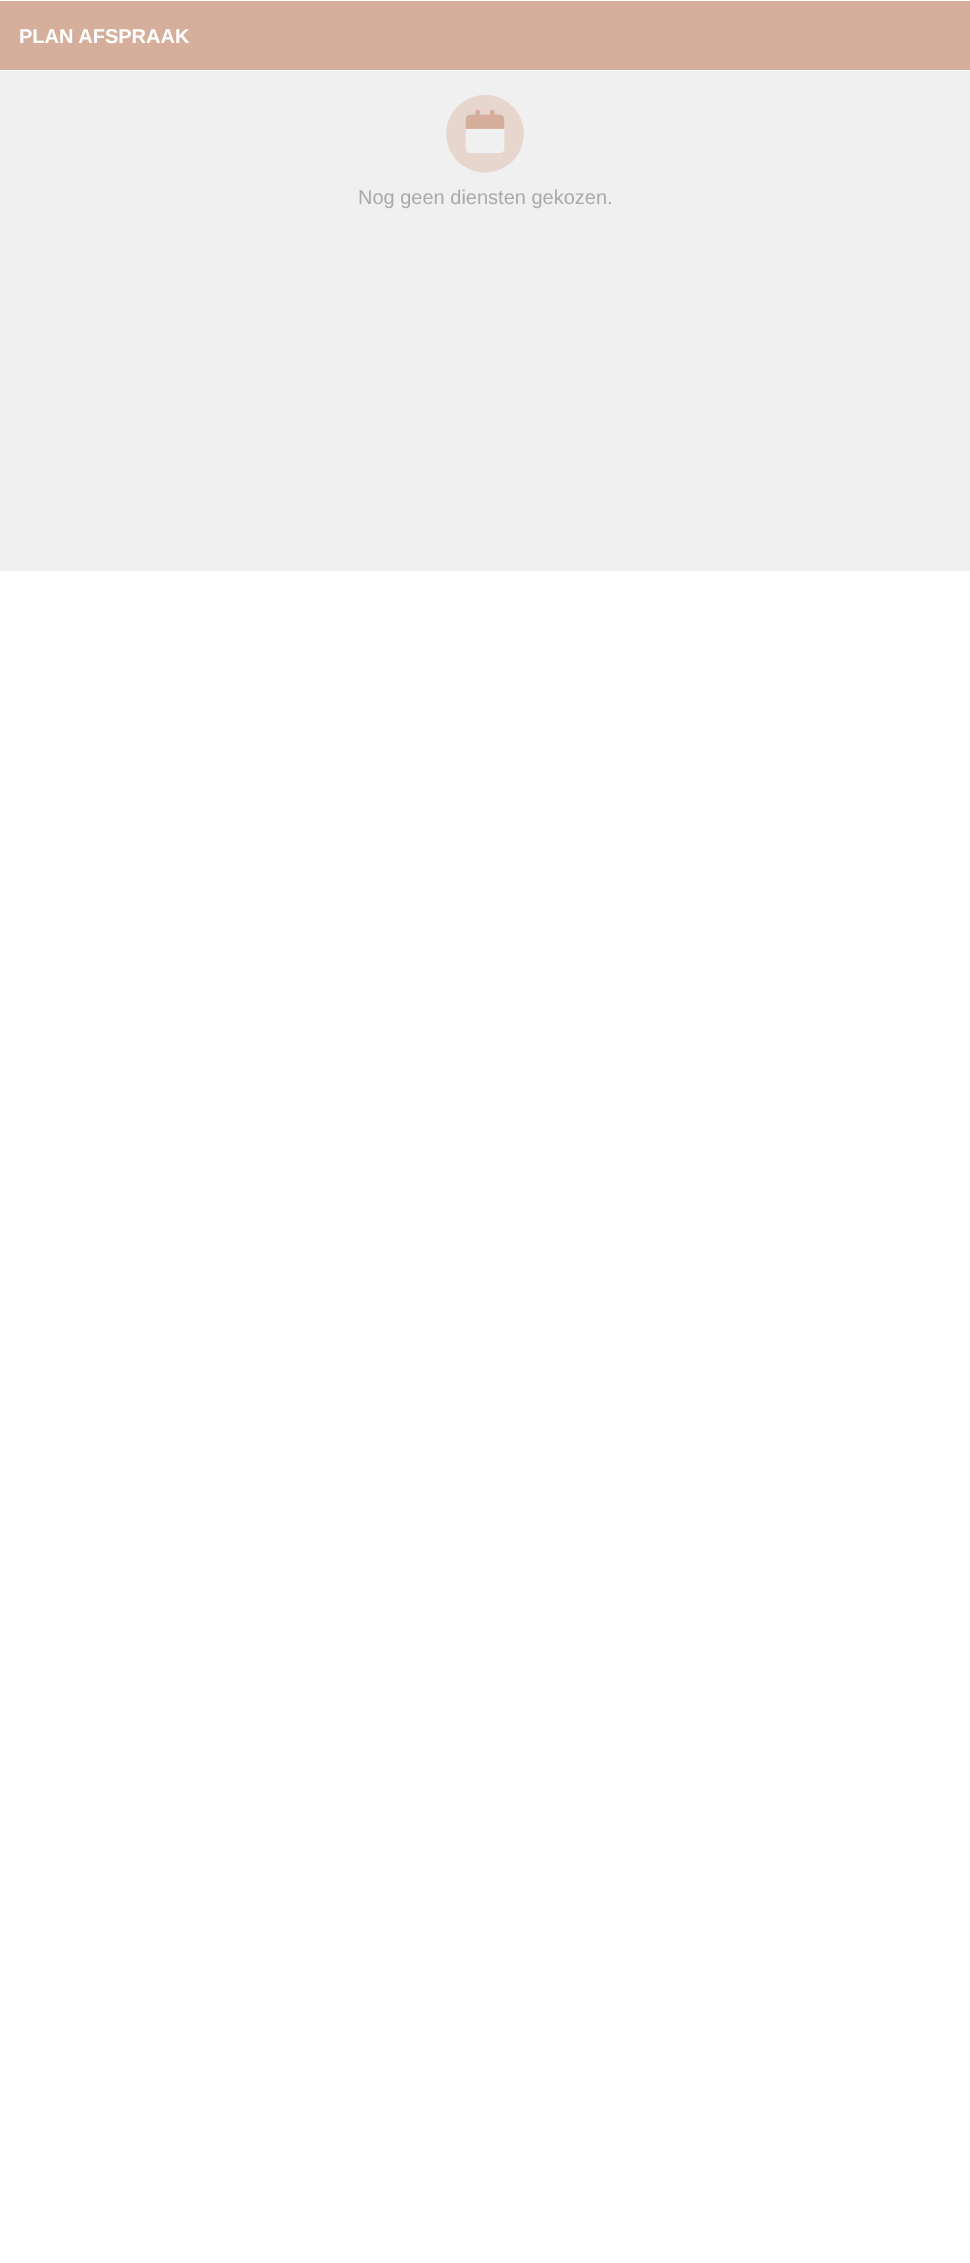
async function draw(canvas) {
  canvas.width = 970;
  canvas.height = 2263;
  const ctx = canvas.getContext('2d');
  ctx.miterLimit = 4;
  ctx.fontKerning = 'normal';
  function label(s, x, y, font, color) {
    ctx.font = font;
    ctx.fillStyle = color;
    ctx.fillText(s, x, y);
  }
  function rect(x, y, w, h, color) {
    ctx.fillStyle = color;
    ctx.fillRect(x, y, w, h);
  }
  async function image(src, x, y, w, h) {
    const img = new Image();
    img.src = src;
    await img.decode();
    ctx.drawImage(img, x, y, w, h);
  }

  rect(0, 0, 970, 2263, '#fff');
  rect(0, 1, 970, 69, '#d6af9c');
  label('PLAN AFSPRAAK', 19, 43, 'bold 20px Liberation Sans', '#fff');
  rect(0, 71, 970, 500, '#f0f0f0');
  await image('assets/img1.png', 446, 95, 78, 78);
  label('Nog geen diensten gekozen.', 358, 204, '20px Liberation Sans', '#aaa');
}

draw(document.querySelector('canvas'));
